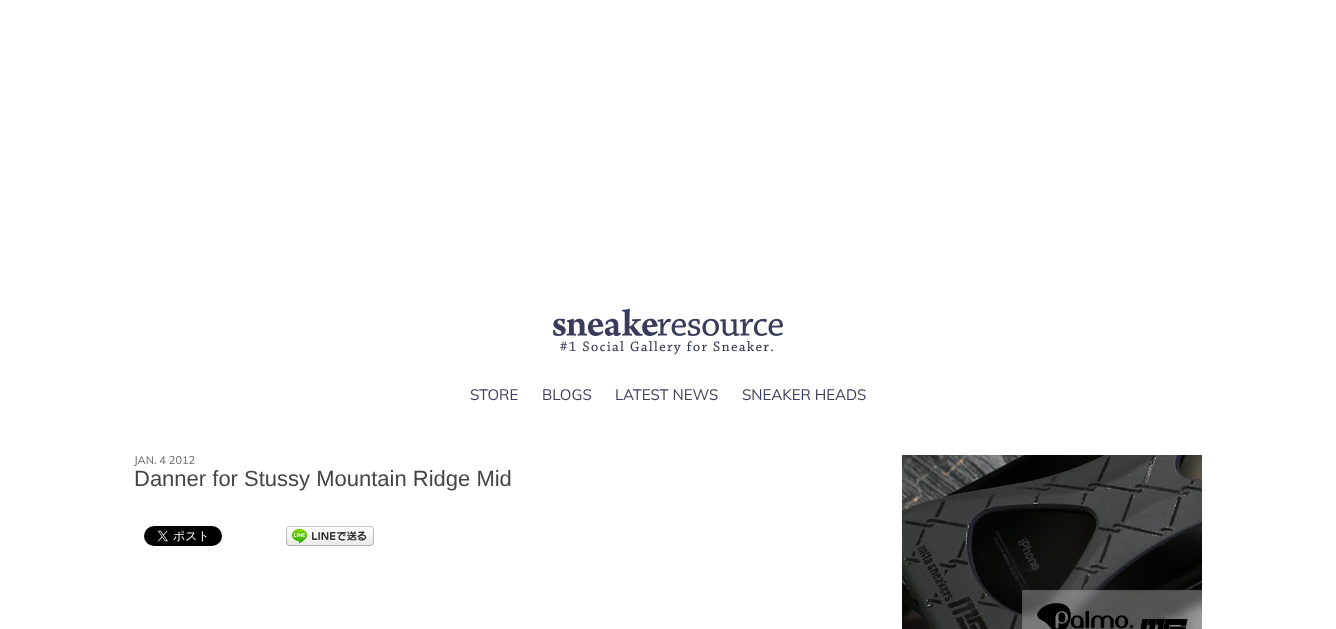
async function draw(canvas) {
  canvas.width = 1336;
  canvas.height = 629;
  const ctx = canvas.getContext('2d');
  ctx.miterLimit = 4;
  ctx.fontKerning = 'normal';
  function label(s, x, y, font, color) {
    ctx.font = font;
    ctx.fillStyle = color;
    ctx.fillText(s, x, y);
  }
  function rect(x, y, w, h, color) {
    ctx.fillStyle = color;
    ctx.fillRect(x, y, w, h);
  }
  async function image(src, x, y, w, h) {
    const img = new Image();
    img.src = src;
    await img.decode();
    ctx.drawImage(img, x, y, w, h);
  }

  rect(0, 0, 1336, 629, '#fff');
  await image('assets/img1.png', 553, 308, 230, 47);
  label('STORE', 470, 400, '15px Muli', '#3c3d59');
  label('BLOGS', 542, 400, '15px Muli', '#3c3d59');
  label('LATEST NEWS', 615, 400, '15px Muli', '#3c3d59');
  label('SNEAKER HEADS', 742, 400, '15px Muli', '#3c3d59');
  label('JAN. 4 2012', 134, 464, '11px Muli', '#666');
  label('Danner for Stussy Mountain Ridge Mid', 134, 486, '22px Liberation Sans', '#444');
  await image('assets/img2.png', 144, 526, 78, 20);
  await image('assets/img3.png', 286, 526, 88, 20);
  await image('assets/img4.png', 902, 455, 300, 174);
}

draw(document.querySelector('canvas'));
